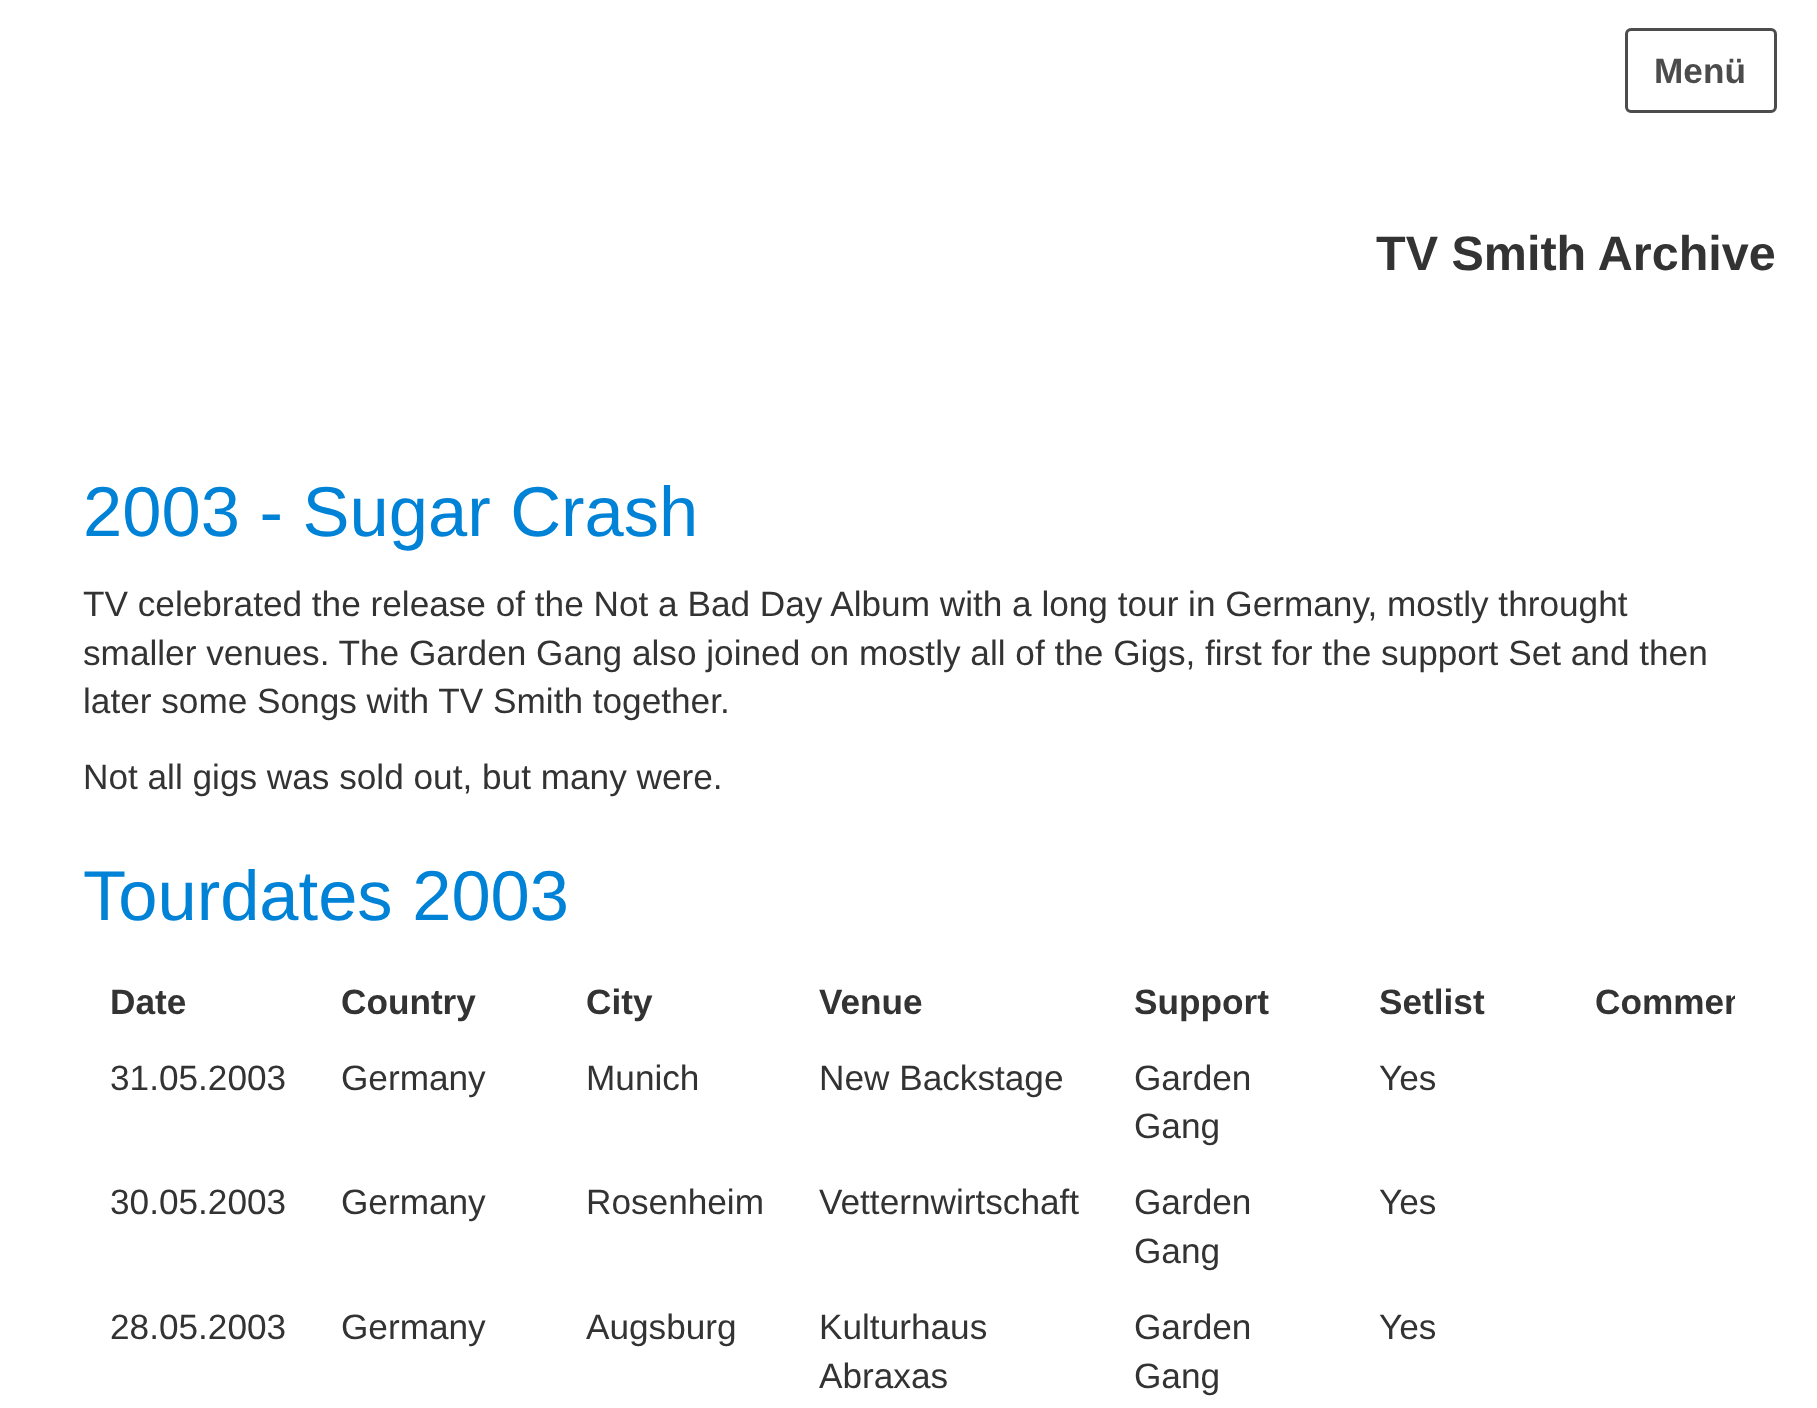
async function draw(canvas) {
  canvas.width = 1817;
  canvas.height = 1408;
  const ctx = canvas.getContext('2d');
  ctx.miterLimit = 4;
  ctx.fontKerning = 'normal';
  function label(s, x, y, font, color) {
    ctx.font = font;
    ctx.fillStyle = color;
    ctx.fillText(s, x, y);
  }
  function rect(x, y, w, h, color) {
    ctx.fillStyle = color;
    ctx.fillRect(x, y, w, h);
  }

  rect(0, 0, 1817, 1408, '#fff');
  ctx.beginPath();
  ctx.roundRect(1626.5, 29.5, 149, 82, 4.5);
  ctx.strokeStyle = '#4c4c4c';
  ctx.lineWidth = 3;
  ctx.stroke();
  label('Menü', 1654, 83, 'bold 35.2px Liberation Sans', '#4c4c4c');
  label('TV Smith Archive', 1376, 270, 'bold 48.5px Liberation Sans', '#333');
  label('2003 - Sugar Crash', 83, 536, '70.5px Liberation Sans', '#0082d7');
  label('TV celebrated the release of the Not a Bad Day Album with a long tour in Germany, mostly throught', 83, 616, '35.2px Liberation Sans', '#333');
  label('smaller venues. The Garden Gang also joined on mostly all of the Gigs, first for the support Set and then', 83, 665, '35.2px Liberation Sans', '#333');
  label('later some Songs with TV Smith together.', 83, 713, '35.2px Liberation Sans', '#333');
  label('Not all gigs was sold out, but many were.', 83, 789, '35.2px Liberation Sans', '#333');
  label('Tourdates 2003', 83, 920, '70.5px Liberation Sans', '#0082d7');
  label('Date', 110, 1014, 'bold 35.2px Liberation Sans', '#333');
  label('Country', 341, 1014, 'bold 35.2px Liberation Sans', '#333');
  label('City', 586, 1014, 'bold 35.2px Liberation Sans', '#333');
  label('Venue', 819, 1014, 'bold 35.2px Liberation Sans', '#333');
  label('Support', 1134, 1014, 'bold 35.2px Liberation Sans', '#333');
  label('Setlist', 1379, 1014, 'bold 35.2px Liberation Sans', '#333');
  ctx.save();
  ctx.beginPath();
  ctx.rect(83, 831, 1652, 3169);
  ctx.clip();
  label('Commen', 1595, 1014, 'bold 35.2px Liberation Sans', '#333');
  ctx.restore();
  label('31.05.2003', 110, 1090, '35.2px Liberation Sans', '#333');
  label('Germany', 341, 1090, '35.2px Liberation Sans', '#333');
  label('Munich', 586, 1090, '35.2px Liberation Sans', '#333');
  label('New Backstage', 819, 1090, '35.2px Liberation Sans', '#333');
  label('Garden', 1134, 1090, '35.2px Liberation Sans', '#333');
  label('Gang', 1134, 1138, '35.2px Liberation Sans', '#333');
  label('Yes', 1379, 1090, '35.2px Liberation Sans', '#333');
  label('30.05.2003', 110, 1214, '35.2px Liberation Sans', '#333');
  label('Germany', 341, 1214, '35.2px Liberation Sans', '#333');
  label('Rosenheim', 586, 1214, '35.2px Liberation Sans', '#333');
  label('Vetternwirtschaft', 819, 1214, '35.2px Liberation Sans', '#333');
  label('Garden', 1134, 1214, '35.2px Liberation Sans', '#333');
  label('Gang', 1134, 1263, '35.2px Liberation Sans', '#333');
  label('Yes', 1379, 1214, '35.2px Liberation Sans', '#333');
  label('28.05.2003', 110, 1339, '35.2px Liberation Sans', '#333');
  label('Germany', 341, 1339, '35.2px Liberation Sans', '#333');
  label('Augsburg', 586, 1339, '35.2px Liberation Sans', '#333');
  label('Kulturhaus', 819, 1339, '35.2px Liberation Sans', '#333');
  label('Abraxas', 819, 1388, '35.2px Liberation Sans', '#333');
  label('Garden', 1134, 1339, '35.2px Liberation Sans', '#333');
  label('Gang', 1134, 1388, '35.2px Liberation Sans', '#333');
  label('Yes', 1379, 1339, '35.2px Liberation Sans', '#333');
}

draw(document.querySelector('canvas'));
